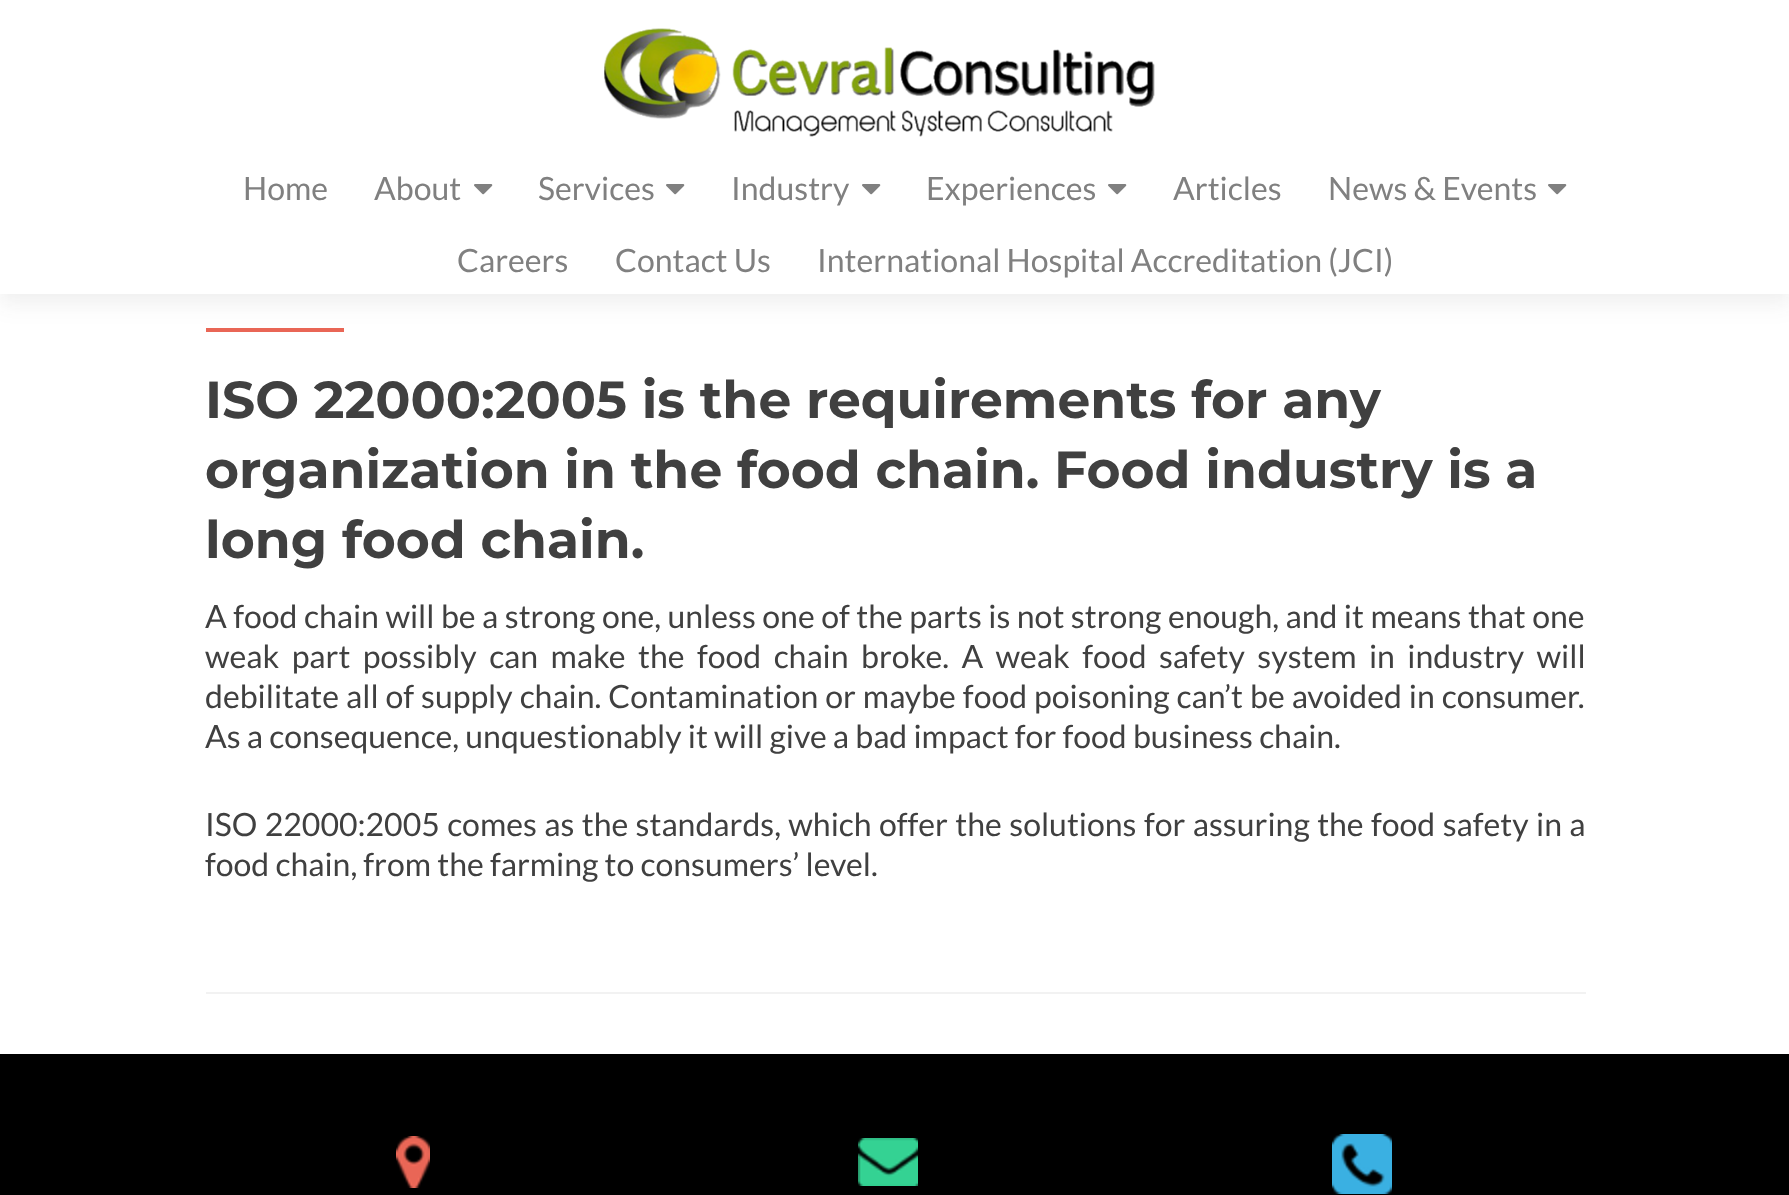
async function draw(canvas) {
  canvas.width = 1789;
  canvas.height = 1195;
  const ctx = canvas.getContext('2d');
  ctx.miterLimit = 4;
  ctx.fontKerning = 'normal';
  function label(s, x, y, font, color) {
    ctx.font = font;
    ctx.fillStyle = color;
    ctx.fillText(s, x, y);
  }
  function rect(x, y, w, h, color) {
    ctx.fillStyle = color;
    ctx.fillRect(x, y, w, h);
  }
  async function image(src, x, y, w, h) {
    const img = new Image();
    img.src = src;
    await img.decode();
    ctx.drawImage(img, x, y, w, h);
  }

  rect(0, 0, 1789, 1195, '#fff');
  rect(206, 328, 138, 4, '#e96656');
  ctx.fillStyle = '#32323214';
  ctx.filter = 'blur(11px)';
  ctx.beginPath();
  ctx.rect(0, 10, 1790, 294);
  ctx.fill();
  ctx.filter = 'none';
  rect(0, 0, 1789, 294, '#fff');
  await image('assets/img1.png', 604, 28, 551, 109);
  label('Home', 243, 200, '32px Lato', '#808080');
  label('About', 374, 200, '32px Lato', '#808080');
  await image('assets/img2.png', 474, 184, 19, 11);
  label('Services', 538, 200, '32px Lato', '#808080');
  await image('assets/img2.png', 666, 184, 19, 11);
  label('Industry', 731, 200, '32px Lato', '#808080');
  await image('assets/img2.png', 862, 184, 19, 11);
  label('Experiences', 926, 200, '32px Lato', '#808080');
  await image('assets/img2.png', 1108, 184, 19, 11);
  label('Articles', 1173, 200, '32px Lato', '#808080');
  label('News & Events', 1328, 200, '32px Lato', '#808080');
  await image('assets/img2.png', 1548, 184, 19, 11);
  label('Careers', 457, 272, '32px Lato', '#808080');
  label('Contact Us', 615, 272, '32px Lato', '#808080');
  label('International Hospital Accreditation (JCI)', 817, 272, '32px Lato', '#808080');
  rect(206, 992, 1380, 2, '#f2f2f2');
  label('ISO 22000:2005 is the requirements for any', 205, 418, '100 52px Montserrat', '#404040');
  label('organization in the food chain. Food industry is a', 205, 488, '100 52px Montserrat', '#404040');
  label('long food chain.', 205, 558, '100 52px Montserrat', '#404040');
  ctx.wordSpacing = '0.3px';
  label('A food chain will be a strong one, unless one of the parts is not strong enough, and it means that one', 205, 628, '32px Lato', '#404040');
  ctx.wordSpacing = '6.25px';
  label('weak part possibly can make the food chain broke. A weak food safety system in industry will', 205, 668, '32px Lato', '#404040');
  ctx.wordSpacing = '0.8px';
  label('debilitate all of supply chain. Contamination or maybe food poisoning can’t be avoided in consumer.', 205, 708, '32px Lato', '#404040');
  ctx.wordSpacing = '0px';
  label('As a consequence, unquestionably it will give a bad impact for food business chain.', 205, 748, '32px Lato', '#404040');
  ctx.wordSpacing = '1.2px';
  label('ISO 22000:2005 comes as the standards, which offer the solutions for assuring the food safety in a', 205, 836, '32px Lato', '#404040');
  ctx.wordSpacing = '0px';
  label('food chain, from the farming to consumers’ level.', 205, 876, '32px Lato', '#404040');
  rect(0, 1054, 1789, 141, '#000');
  await image('assets/img3.png', 396, 1136, 34, 52);
  await image('assets/img4.png', 858, 1138, 60, 48);
  await image('assets/img5.png', 1332, 1134, 60, 60);
}

draw(document.querySelector('canvas'));
